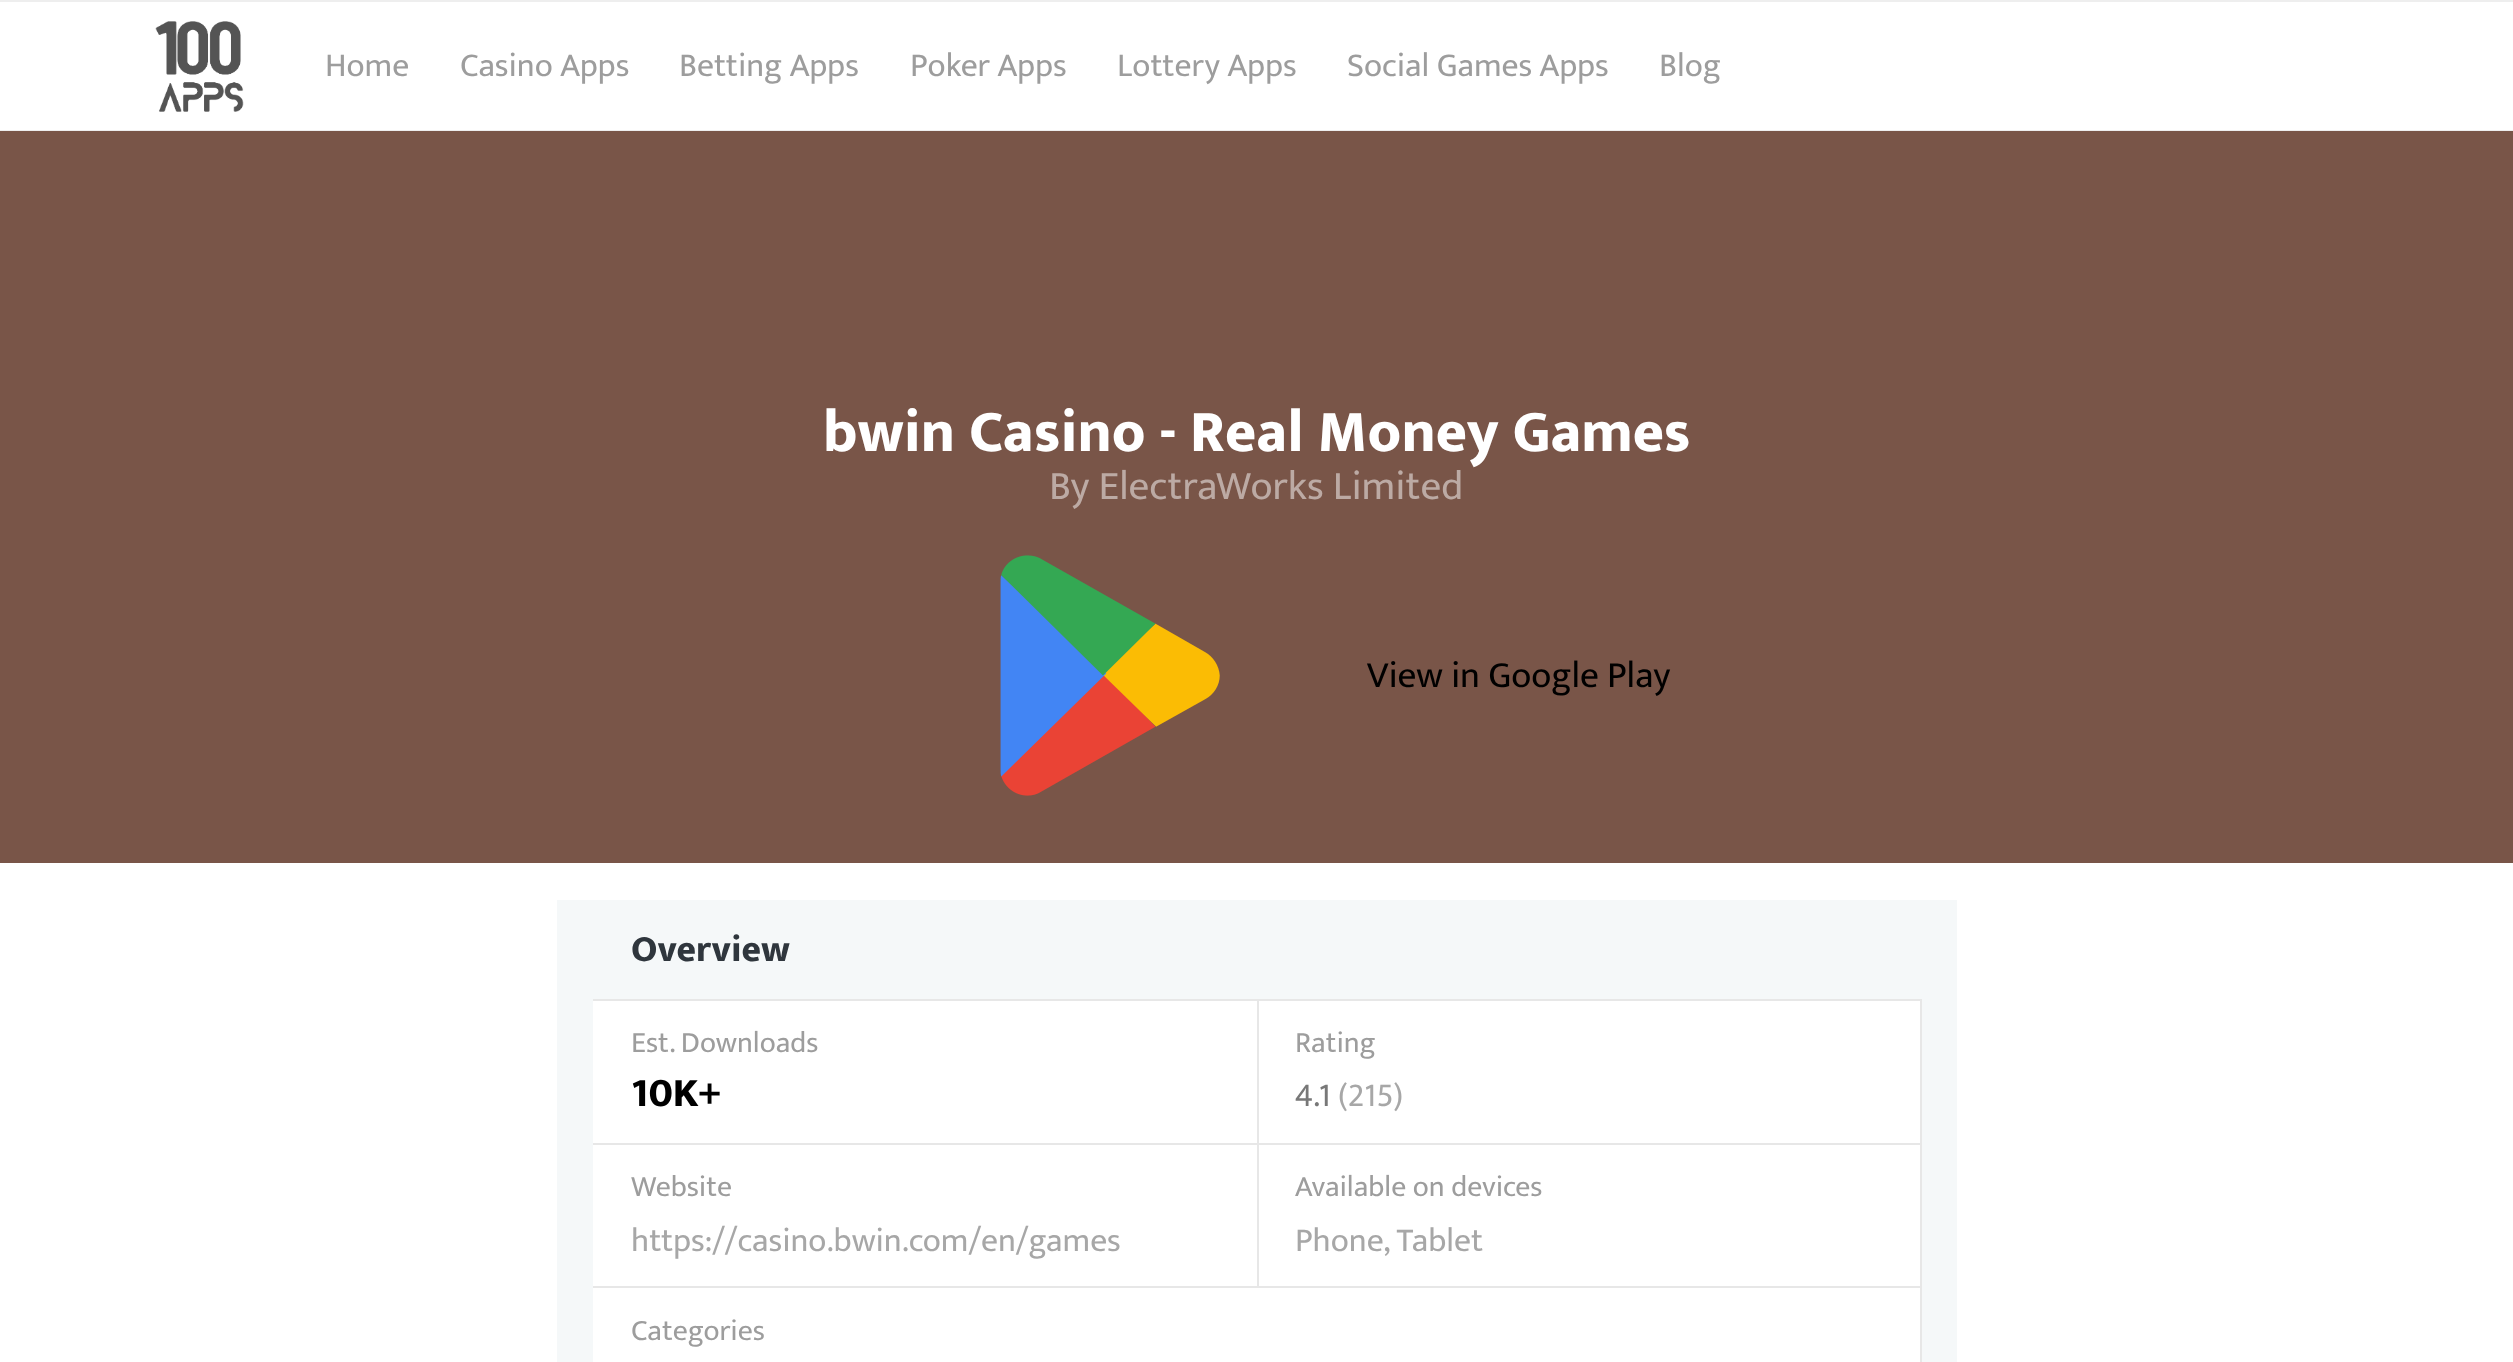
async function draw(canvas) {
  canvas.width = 2513;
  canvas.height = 1362;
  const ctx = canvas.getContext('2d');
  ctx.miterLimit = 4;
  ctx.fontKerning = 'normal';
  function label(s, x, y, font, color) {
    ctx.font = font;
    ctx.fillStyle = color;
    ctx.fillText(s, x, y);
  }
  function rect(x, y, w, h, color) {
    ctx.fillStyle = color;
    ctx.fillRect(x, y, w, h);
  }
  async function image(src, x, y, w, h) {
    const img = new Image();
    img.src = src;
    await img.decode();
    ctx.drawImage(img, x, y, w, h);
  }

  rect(0, 0, 2513, 1362, '#fff');
  rect(0, 0, 2513, 2, '#eee');
  rect(0, 130, 2513, 1, '#eee');
  await image('assets/img1.png', 155, 21, 89, 91);
  label('Home', 325, 76, '33.6px Mukta', '#9d9d9d');
  label('Casino Apps', 460, 76, '33.6px Mukta', '#9d9d9d');
  label('Betting Apps', 679, 76, '33.6px Mukta', '#9d9d9d');
  label('Poker Apps', 910, 76, '33.6px Mukta', '#9d9d9d');
  label('Lottery Apps', 1117, 76, '33.6px Mukta', '#9d9d9d');
  label('Social Games Apps', 1347, 76, '33.6px Mukta', '#9d9d9d');
  label('Blog', 1659, 76, '33.6px Mukta', '#9d9d9d');
  rect(0, 131, 2513, 732, '#795548');
  label('bwin Casino - Real Money Games', 823, 451, '800 59.75px Mukta', '#fff');
  label('By ElectraWorks Limited', 1049, 499, '41px Mukta', '#bcaaa4');
  await image('assets/img2.png', 1000, 555, 220, 241);
  label('View in Google Play', 1367, 687, '37.25px Mukta', '#000');
  rect(557, 900, 1400, 462, '#f5f8f9');
  label('Overview', 631, 961, '800 37.25px Mukta', '#2f363d');
  rect(593, 1001, 1327, 361, '#fff');
  rect(593, 999, 1329, 2, '#e7e7e7');
  rect(1257, 1001, 2, 287, '#e7e7e7');
  rect(593, 1143, 665, 2, '#e7e7e7');
  label('Est. Downloads', 631, 1052, '29.75px Mukta', '#9d9d9d');
  label('10K+', 631, 1106, '800 41px Mukta', '#000');
  rect(1920, 1001, 2, 361, '#e7e7e7');
  rect(1258, 1143, 664, 2, '#e7e7e7');
  label('Rating', 1295, 1052, '29.75px Mukta', '#9d9d9d');
  label('4.1', 1295, 1106, '33.6px Mukta', '#787878');
  label('(215)', 1338, 1106, '33.6px Mukta', '#a7a7a7');
  rect(593, 1286, 1329, 2, '#e7e7e7');
  label('Website', 631, 1196, '29.75px Mukta', '#9d9d9d');
  label('https://casino.bwin.com/en/games', 631, 1251, '33.6px Mukta', '#a7a7a7');
  label('Available on devices', 1295, 1196, '29.75px Mukta', '#9d9d9d');
  label('Phone, Tablet', 1295, 1251, '33.6px Mukta', '#a7a7a7');
  label('Categories', 631, 1340, '29.75px Mukta', '#9d9d9d');
}

draw(document.querySelector('canvas'));
